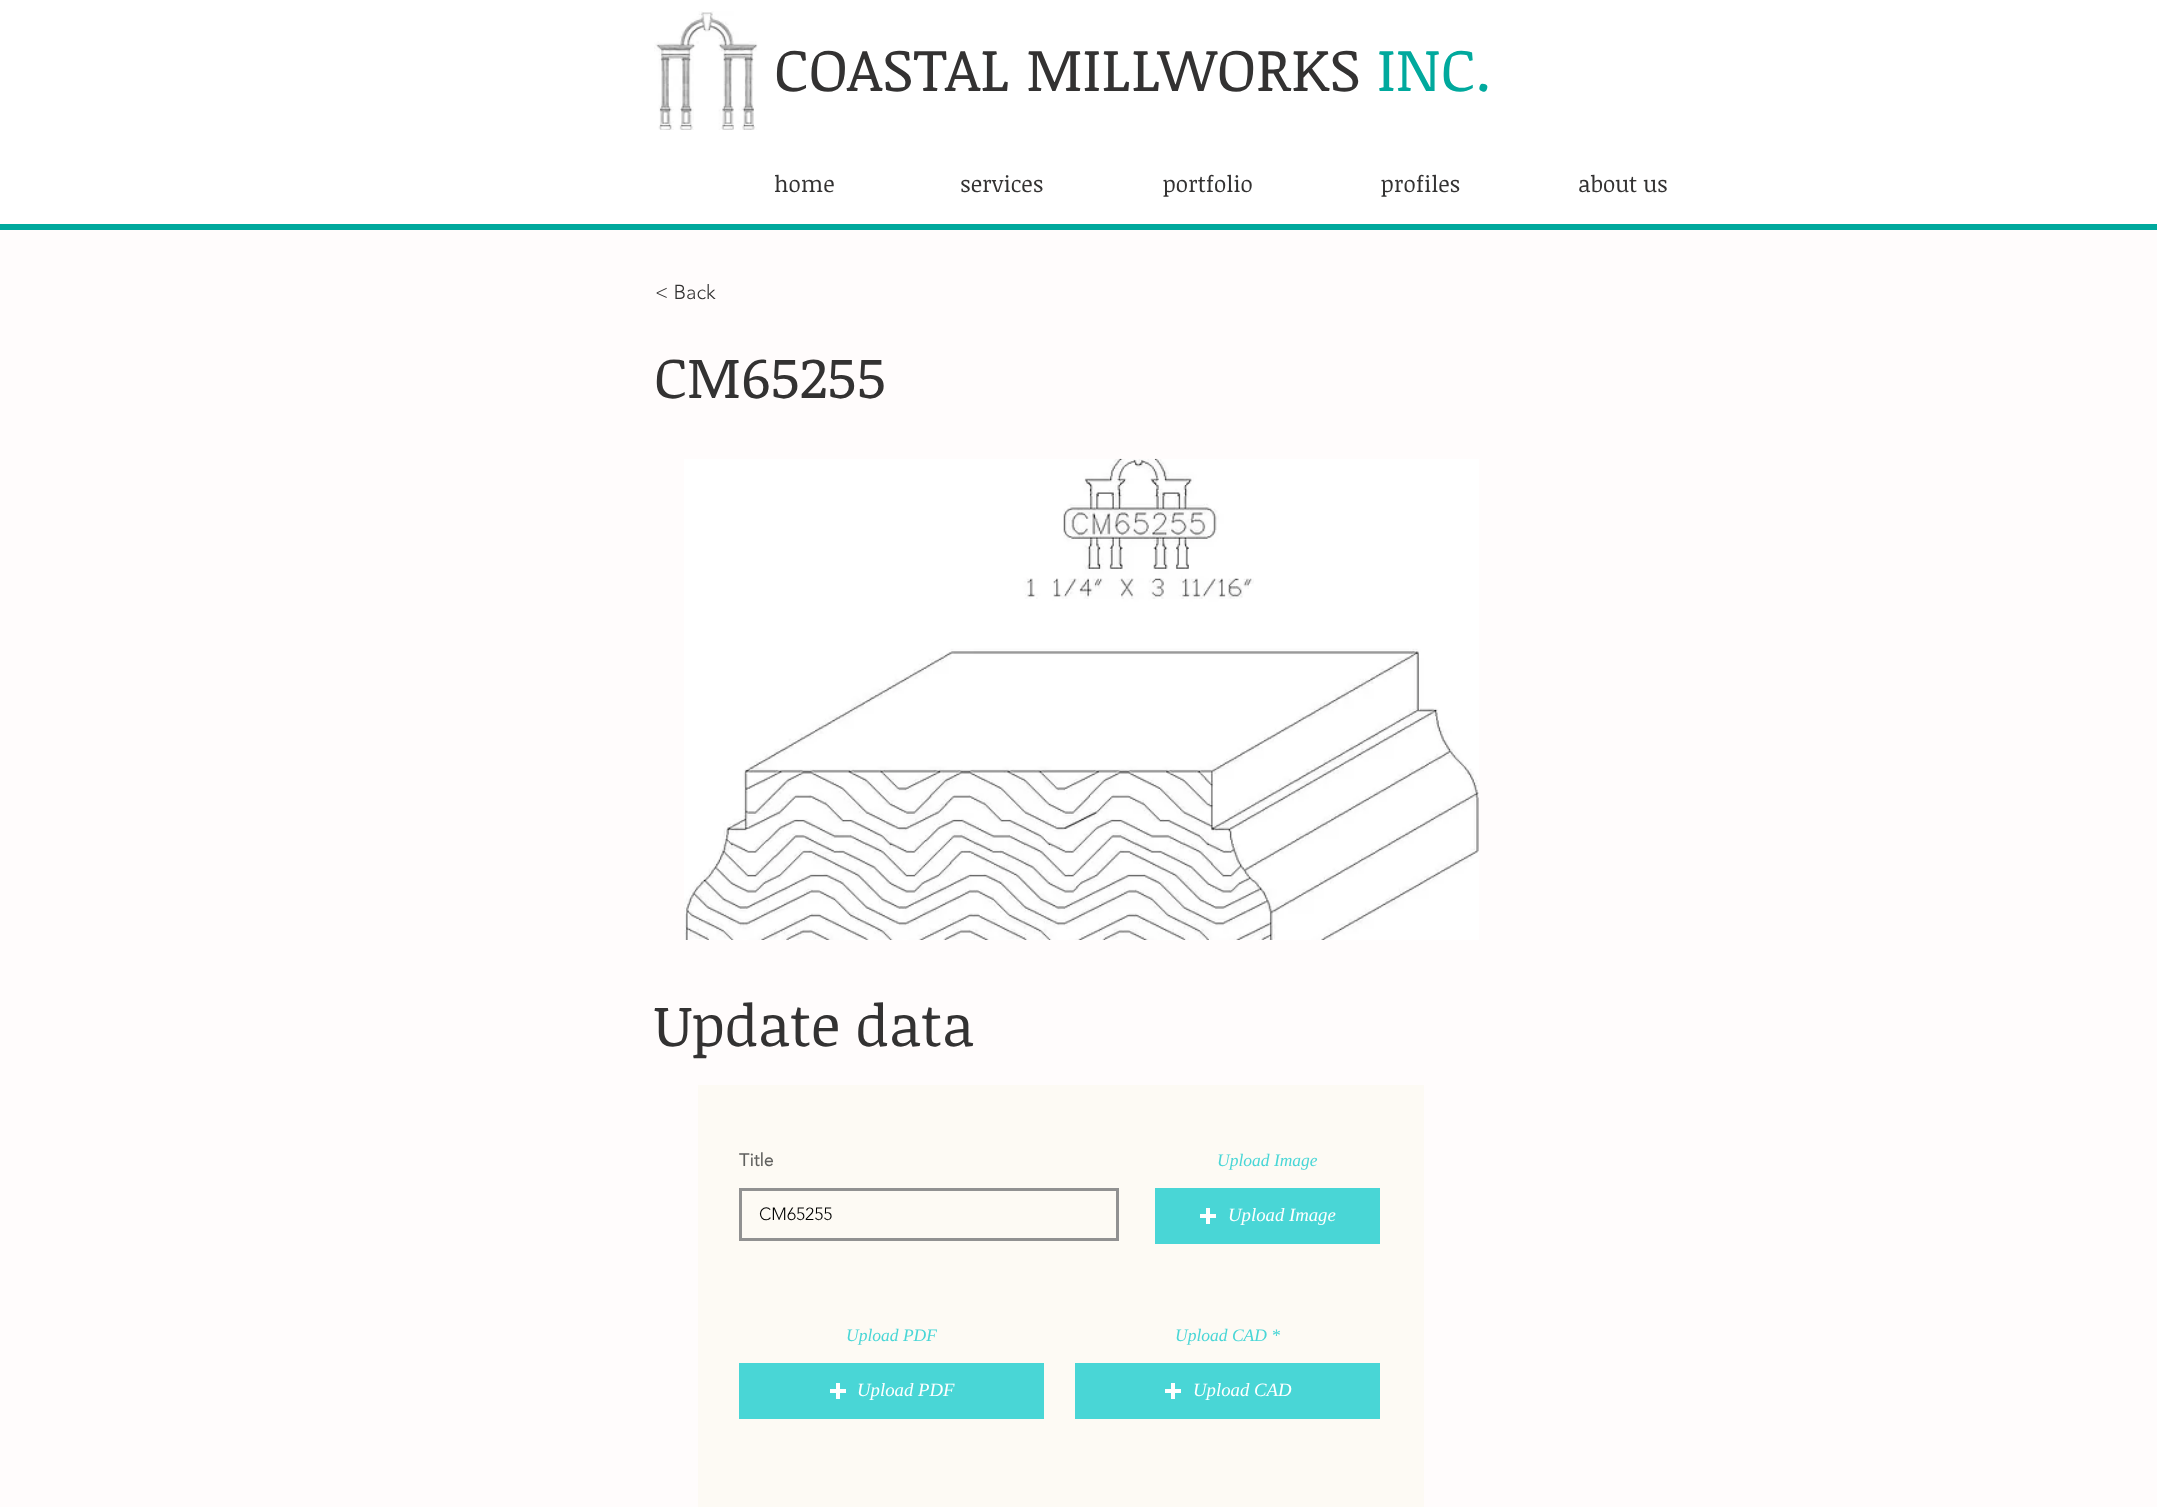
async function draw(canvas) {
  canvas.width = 2157;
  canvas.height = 1507;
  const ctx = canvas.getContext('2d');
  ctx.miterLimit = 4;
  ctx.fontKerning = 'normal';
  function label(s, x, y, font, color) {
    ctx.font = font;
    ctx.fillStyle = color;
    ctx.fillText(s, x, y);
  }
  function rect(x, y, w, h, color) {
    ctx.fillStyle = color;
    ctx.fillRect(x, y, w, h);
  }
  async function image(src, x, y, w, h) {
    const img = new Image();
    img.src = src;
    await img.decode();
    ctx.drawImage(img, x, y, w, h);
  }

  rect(0, 0, 2157, 1507, '#fffcfc');
  rect(0, 0, 2157, 224, '#fff');
  rect(0, 224, 2157, 6, '#00a99d');
  await image('assets/img1.png', 654, 11, 104, 119);
  label('COASTAL MILLWORKS', 774, 91, '60px Noticia Text', '#333232');
  label('INC.', 1377, 91, '60px Noticia Text', '#00a99d');
  label('home', 774, 192, '22.5px Noticia Text', '#333232');
  label('services', 960, 192, '22.5px Noticia Text', '#333232');
  label('portfolio', 1163, 192, '22.5px Noticia Text', '#333232');
  label('profiles', 1381, 192, '22.5px Noticia Text', '#333232');
  label('about us', 1578, 192, '22.5px Noticia Text', '#333232');
  label('< Back', 655, 299, '300 20px "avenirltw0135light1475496"', '#333232');
  label('CM65255', 654, 398, '57.5px Noticia Text', '#333232');
  await image('assets/img2.png', 684, 458, 795, 482);
  label('Update data', 654, 1046, '57.5px Noticia Text', '#333232');
  rect(698, 1085, 726, 422, '#fdfaf4');
  label('Title', 739, 1166, 'bold 17.5px "avenirltw0135light1475496"', '#61615f');
  ctx.strokeStyle = '#919191';
  ctx.lineWidth = 3;
  ctx.strokeRect(740.5, 1189.5, 377, 50);
  label('CM65255', 759, 1220, '300 17.5px "avenirltw0135light1475496"', '#000');
  label('Upload Image', 1217, 1166, 'italic 17.5px Liberation Serif', '#49d6d6');
  rect(1155, 1188, 225, 56, '#49d6d6');
  rect(1206, 1208, 4, 16, '#fff');
  rect(1200, 1214, 16, 4, '#fff');
  label('Upload Image', 1228, 1221, 'italic 18.75px Liberation Serif', '#fff');
  label('Upload PDF', 846, 1341, 'italic 17.5px Liberation Serif', '#49d6d6');
  rect(739, 1363, 305, 56, '#49d6d6');
  rect(836, 1383, 4, 16, '#fff');
  rect(830, 1389, 16, 4, '#fff');
  label('Upload PDF', 857, 1396, 'italic 18.75px Liberation Serif', '#fff');
  label('Upload CAD *', 1175, 1341, 'italic 17.5px Liberation Serif', '#49d6d6');
  rect(1075, 1363, 305, 56, '#49d6d6');
  rect(1171, 1383, 4, 16, '#fff');
  rect(1165, 1389, 16, 4, '#fff');
  label('Upload CAD', 1193, 1396, 'italic 18.75px Liberation Serif', '#fff');
}

draw(document.querySelector('canvas'));
